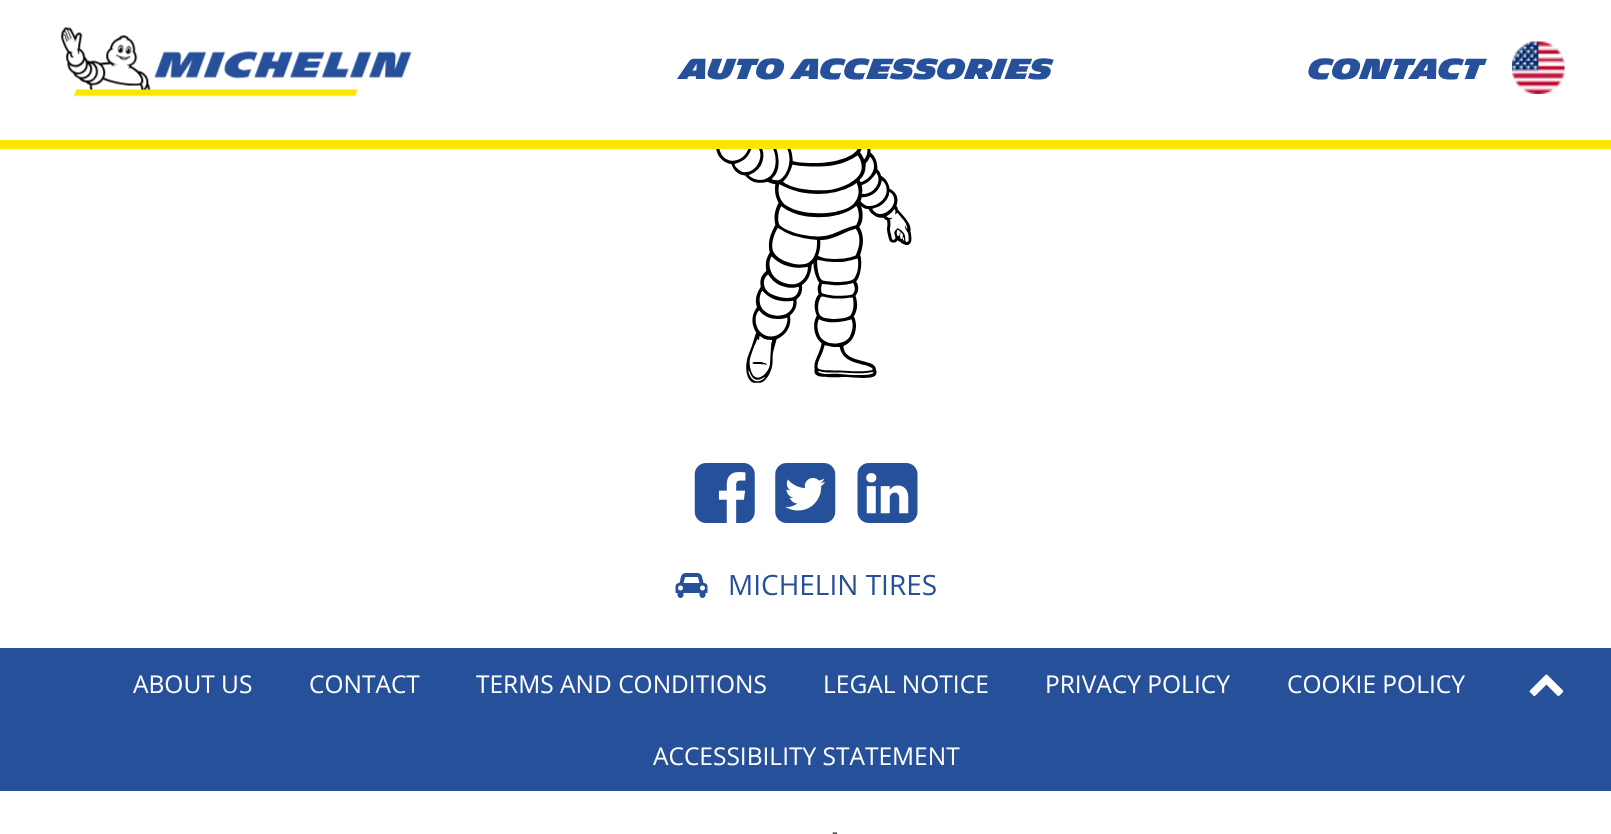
async function draw(canvas) {
  canvas.width = 1611;
  canvas.height = 834;
  const ctx = canvas.getContext('2d');
  ctx.miterLimit = 4;
  ctx.fontKerning = 'normal';
  function label(s, x, y, font, color) {
    ctx.font = font;
    ctx.fillStyle = color;
    ctx.fillText(s, x, y);
  }
  function rect(x, y, w, h, color) {
    ctx.fillStyle = color;
    ctx.fillRect(x, y, w, h);
  }
  async function image(src, x, y, w, h) {
    const img = new Image();
    img.src = src;
    await img.decode();
    ctx.drawImage(img, x, y, w, h);
  }

  rect(0, 0, 1611, 834, '#fff');
  rect(0, 140, 1611, 9, '#fce500');
  await image('assets/img1.png', 61, 27, 351, 70);
  label('AUTO ACCESSORIES', 680, 79, 'italic 900 28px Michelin', '#27509b');
  label('CONTACT', 1308, 79, 'italic 900 28px Michelin', '#27509b');
  await image('assets/img2.png', 1512, 41, 53, 53);
  await image('assets/img3.png', 716, 149, 196, 234);
  await image('assets/img4.png', 694, 463, 61, 60);
  await image('assets/img5.png', 775, 463, 61, 60);
  await image('assets/img6.png', 857, 463, 61, 60);
  await image('assets/img7.png', 675, 573, 33, 25);
  label('MICHELIN TIRES', 728, 595, '28px Open Sans', '#27509b');
  rect(0, 648, 1611, 143, '#27509b');
  label('ABOUT US', 133, 693, '24.5px Open Sans', '#fff');
  label('CONTACT', 309, 693, '24.5px Open Sans', '#fff');
  label('TERMS AND CONDITIONS', 476, 693, '24.5px Open Sans', '#fff');
  label('LEGAL NOTICE', 823, 693, '24.5px Open Sans', '#fff');
  label('PRIVACY POLICY', 1045, 693, '24.5px Open Sans', '#fff');
  label('COOKIE POLICY', 1287, 693, '24.5px Open Sans', '#fff');
  label('ACCESSIBILITY STATEMENT', 653, 765, '24.5px Open Sans', '#fff');
  label('-', 832, 838, '18px Open Sans', '#212529');
  await image('assets/img8.png', 1529, 674, 35, 22);
}

draw(document.querySelector('canvas'));
